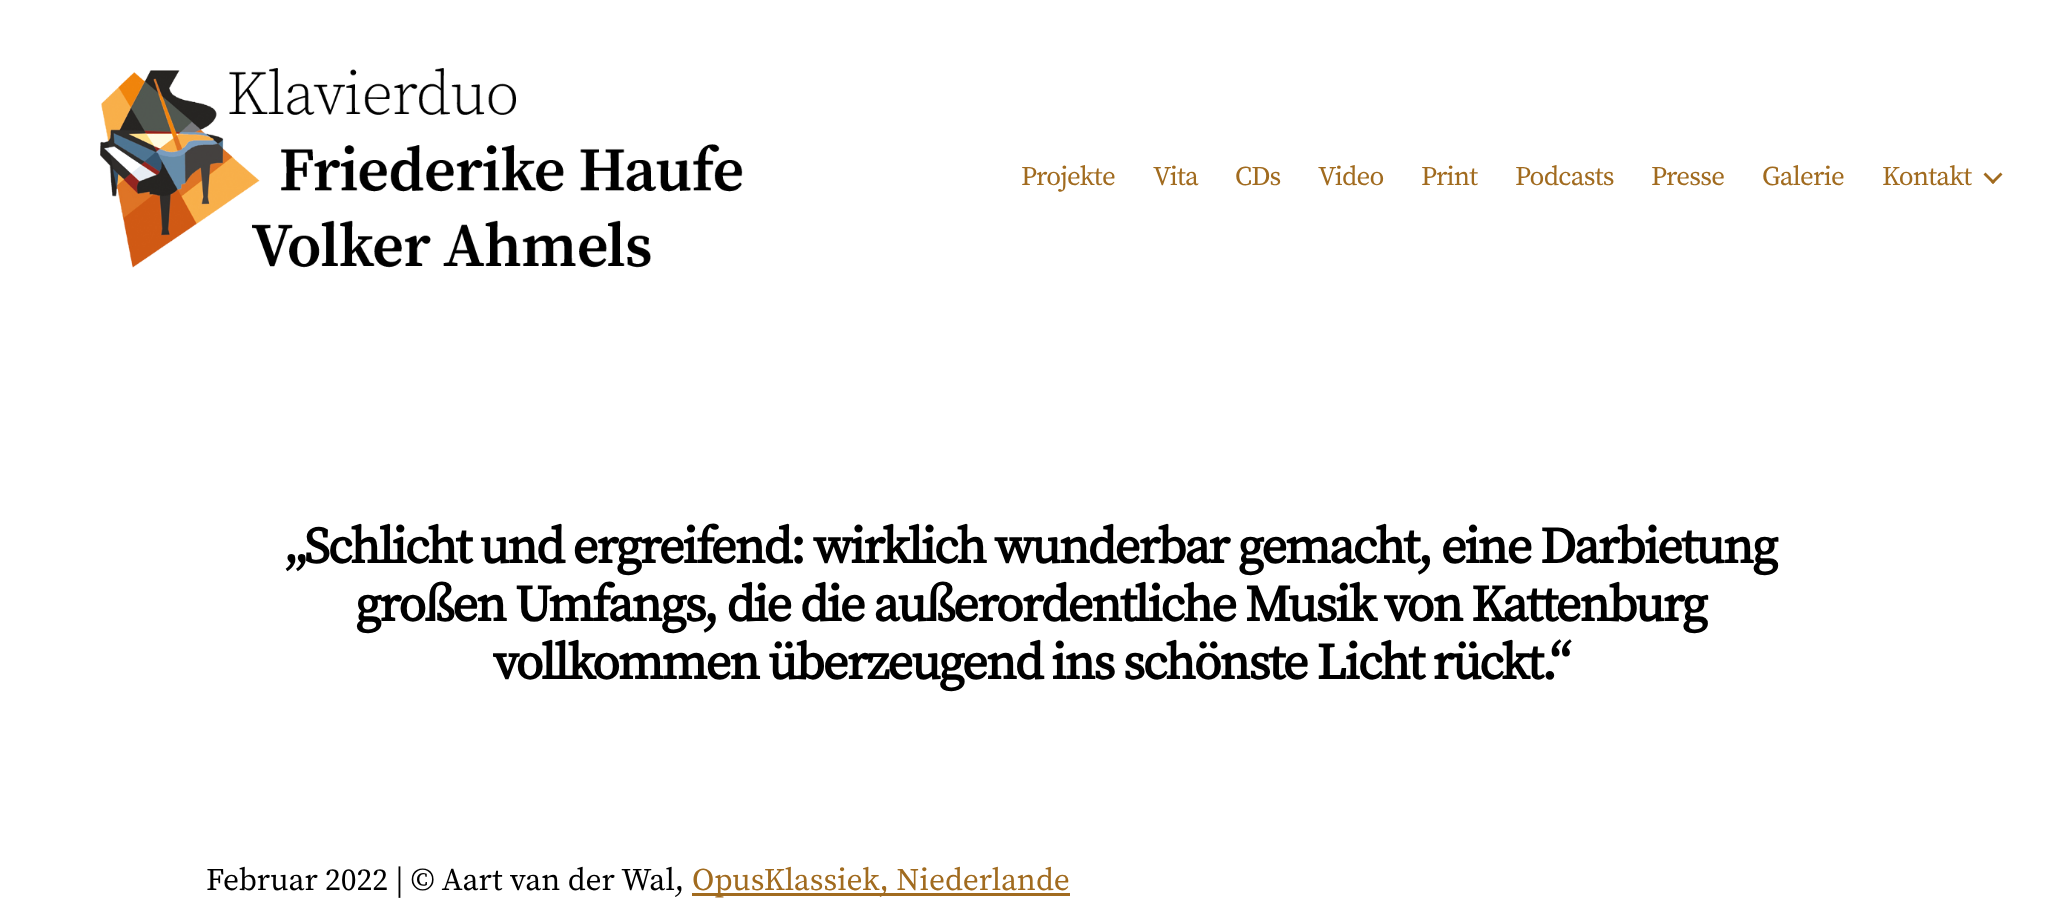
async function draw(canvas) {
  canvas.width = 2060;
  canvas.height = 910;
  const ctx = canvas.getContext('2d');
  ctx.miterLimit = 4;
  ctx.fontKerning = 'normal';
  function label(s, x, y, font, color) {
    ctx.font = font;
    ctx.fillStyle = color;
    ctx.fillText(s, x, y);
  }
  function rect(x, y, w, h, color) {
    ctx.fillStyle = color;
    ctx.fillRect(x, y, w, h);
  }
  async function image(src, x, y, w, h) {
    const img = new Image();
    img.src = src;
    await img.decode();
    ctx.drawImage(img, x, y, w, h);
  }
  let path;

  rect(0, 0, 2060, 910, '#fff');
  await image('assets/img1.png', 100, 68, 643, 200);
  ctx.letterSpacing = '-0.75px';
  label('Projekte', 1021, 185, '27px Source Serif Pro', '#a16b1f');
  label('Vita', 1153, 185, '27px Source Serif Pro', '#a16b1f');
  label('CDs', 1235, 185, '27px Source Serif Pro', '#a16b1f');
  label('Video', 1318, 185, '27px Source Serif Pro', '#a16b1f');
  label('Print', 1421, 185, '27px Source Serif Pro', '#a16b1f');
  label('Podcasts', 1515, 185, '27px Source Serif Pro', '#a16b1f');
  label('Presse', 1651, 185, '27px Source Serif Pro', '#a16b1f');
  label('Galerie', 1762, 185, '27px Source Serif Pro', '#a16b1f');
  label('Kontakt', 1882, 185, '27px Source Serif Pro', '#a16b1f');
  path = new Path2D('M1983.5 174.5L1985.5 172.5L1995 182L1993 184Z');
  ctx.fill(path);
  path = new Path2D('M1991 182L2000.5 172.5L2002.5 174.5L1993 184Z');
  ctx.fill(path);
  ctx.letterSpacing = '-2.12px';
  label('„Schlicht und ergreifend: wirklich wunderbar gemacht, eine Darbietung', 285, 563, 'bold 51px Source Serif Pro', '#000');
  label('großen Umfangs, die die außerordentliche Musik von Kattenburg', 355, 621, 'bold 51px Source Serif Pro', '#000');
  label('vollkommen überzeugend ins schönste Licht rückt.“', 493, 679, 'bold 51px Source Serif Pro', '#000');
  ctx.letterSpacing = '0px';
  label('Februar 2022 | © Aart van der Wal,', 206, 890, '31.5px Source Serif Pro', '#000');
  rect(692, 893, 378, 3, '#a16b1f');
  label('OpusKlassiek, Niederlande', 692, 890, '31.5px Source Serif Pro', '#a16b1f');
}

draw(document.querySelector('canvas'));
